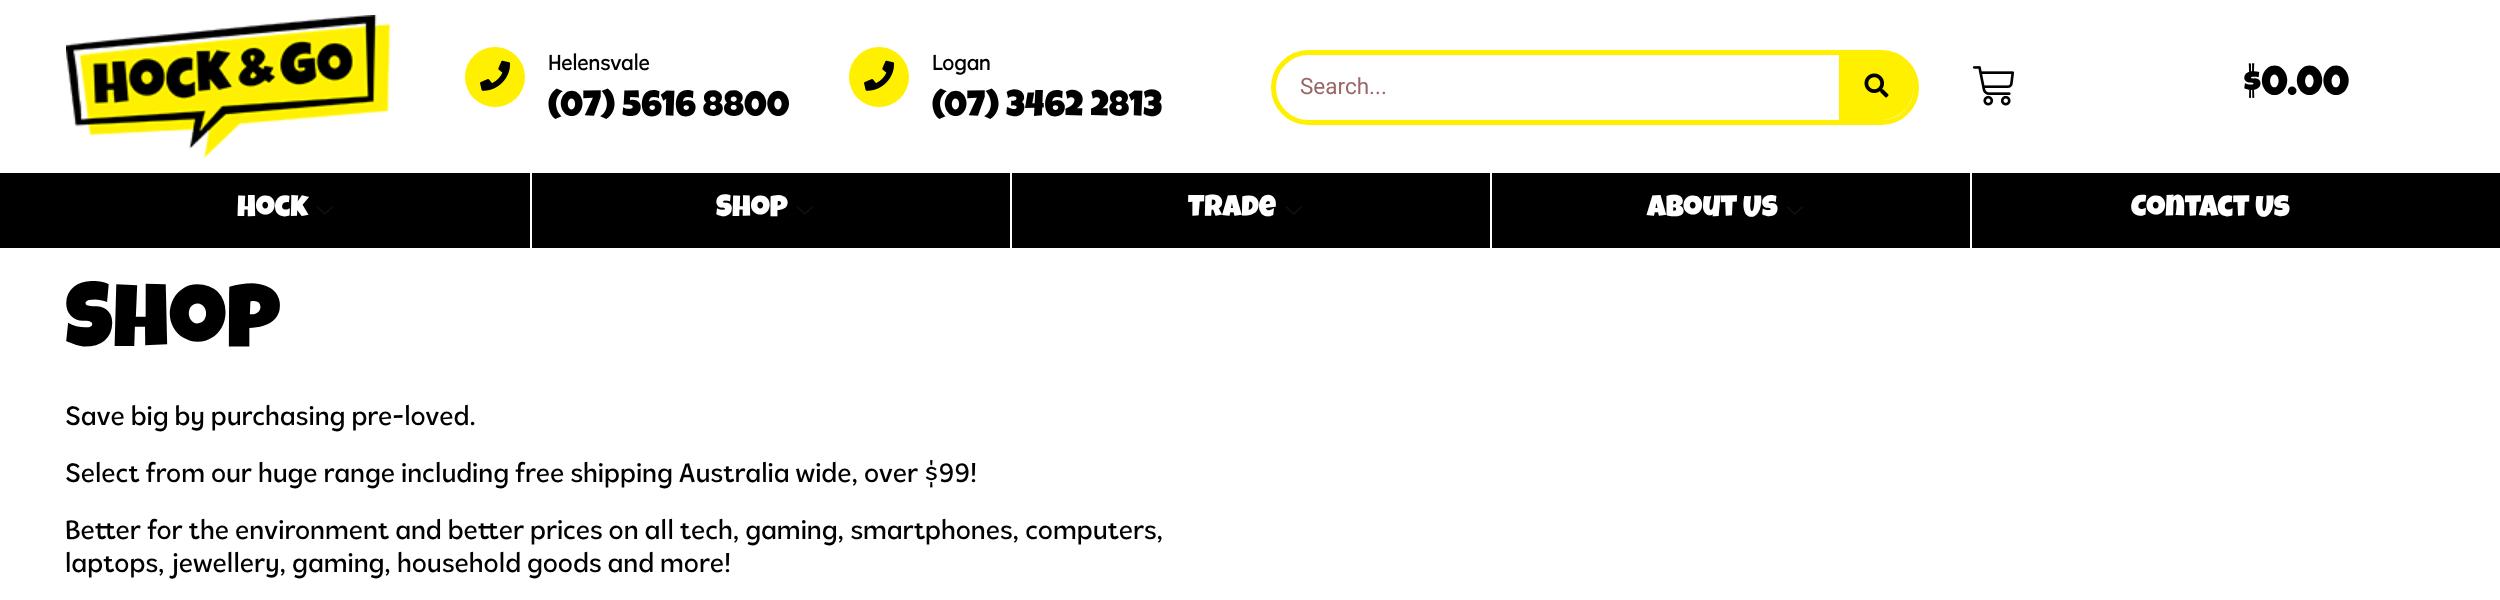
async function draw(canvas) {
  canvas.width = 2500;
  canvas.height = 600;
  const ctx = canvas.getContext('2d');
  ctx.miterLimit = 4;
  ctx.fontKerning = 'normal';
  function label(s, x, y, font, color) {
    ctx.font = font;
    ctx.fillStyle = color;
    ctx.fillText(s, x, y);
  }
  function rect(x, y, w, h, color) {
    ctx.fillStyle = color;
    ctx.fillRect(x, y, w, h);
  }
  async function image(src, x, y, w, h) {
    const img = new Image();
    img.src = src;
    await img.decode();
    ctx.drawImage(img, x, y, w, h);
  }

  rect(0, 0, 2500, 600, '#fff');
  await image('assets/img1.png', 66, 15, 324, 143);
  ctx.fillStyle = '#fff000';
  ctx.beginPath();
  ctx.arc(495, 77, 30, 0, 2 * Math.PI);
  ctx.fill();
  await image('assets/img2.png', 480, 60, 31, 31);
  label('Helensvale', 548, 70, 'bold 21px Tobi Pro', '#000');
  label('(07) 5616 8800', 548, 116, '36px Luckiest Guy', '#000');
  ctx.fillStyle = '#fff000';
  ctx.beginPath();
  ctx.arc(879, 77, 30, 0, 2 * Math.PI);
  ctx.fill();
  await image('assets/img2.png', 864, 60, 31, 31);
  label('Logan', 932, 70, 'bold 21px Tobi Pro', '#000');
  label('(07) 3462 2813', 932, 116, '36px Luckiest Guy', '#000');
  ctx.beginPath();
  ctx.roundRect(1273.5, 52.5, 643, 70, 35);
  ctx.strokeStyle = '#fff000';
  ctx.lineWidth = 5;
  ctx.stroke();
  label('Search...', 1300, 94, '22.5px Roboto', '#9a6767');
  ctx.fillStyle = '#fff000';
  ctx.beginPath();
  ctx.roundRect(1839, 54, 75, 66, [0, 33, 33, 0]);
  ctx.fill();
  await image('assets/img3.png', 1864, 73, 25, 25);
  await image('assets/img4.png', 1972, 66, 42, 40);
  label('$0.00', 2243, 95, '42px "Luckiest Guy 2"', '#000');
  rect(0, 173, 2500, 75, '#000');
  rect(530, 173, 2, 75, '#fff');
  label('Hock', 237, 216, '30px "Luckiest Guy 2"', '#fff');
  await image('assets/img5.png', 316, 206, 17, 9);
  rect(1010, 173, 2, 75, '#fff');
  label('Shop', 716, 216, '30px "Luckiest Guy 2"', '#fff');
  await image('assets/img5.png', 796, 206, 17, 9);
  rect(1490, 173, 2, 75, '#fff');
  label('Trade', 1188, 216, '30px "Luckiest Guy 2"', '#fff');
  await image('assets/img5.png', 1285, 206, 17, 9);
  rect(1970, 173, 2, 75, '#fff');
  label('About Us', 1647, 216, '30px "Luckiest Guy 2"', '#fff');
  await image('assets/img5.png', 1786, 206, 17, 9);
  label('Contact Us', 2131, 216, '30px "Luckiest Guy 2"', '#fff');
  label('Shop', 65, 346, '90px "Luckiest Guy 2"', '#000');
  label('Save big by purchasing pre-loved.', 65, 425, '500 27px Tobi Pro', '#000');
  label('Select from our huge range including free shipping Australia wide, over $99!', 65, 482, '500 27px Tobi Pro', '#000');
  label('Better for the environment and better prices on all tech, gaming, smartphones, computers,', 65, 539, '500 27px Tobi Pro', '#000');
  label('laptops, jewellery, gaming, household goods and more!', 65, 572, '500 27px Tobi Pro', '#000');
}

draw(document.querySelector('canvas'));
